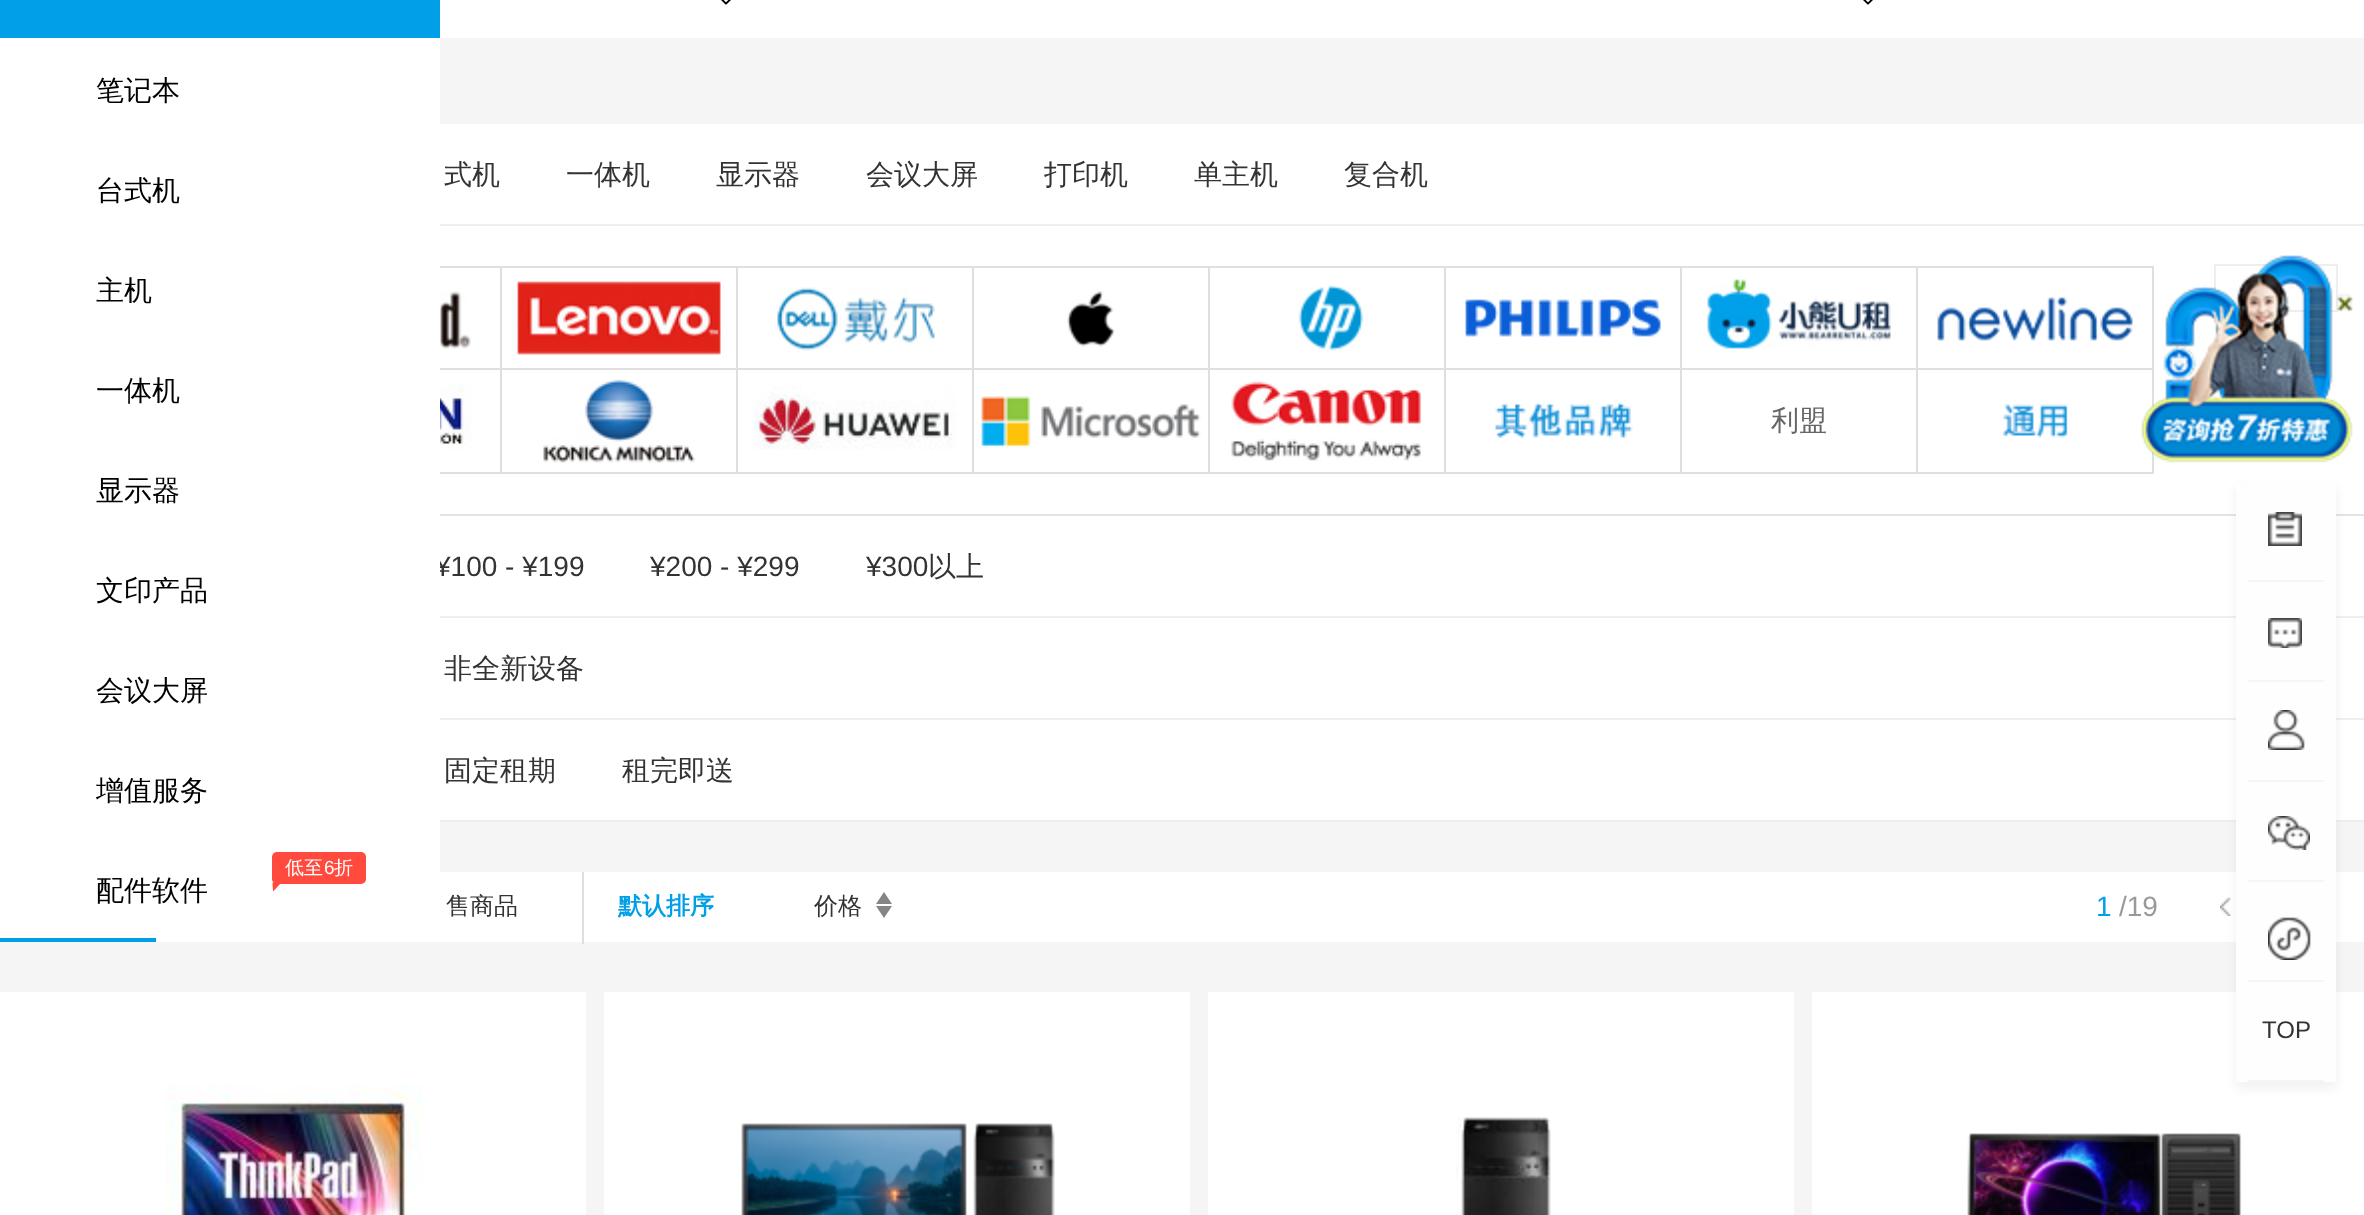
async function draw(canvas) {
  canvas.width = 2364;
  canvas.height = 1215;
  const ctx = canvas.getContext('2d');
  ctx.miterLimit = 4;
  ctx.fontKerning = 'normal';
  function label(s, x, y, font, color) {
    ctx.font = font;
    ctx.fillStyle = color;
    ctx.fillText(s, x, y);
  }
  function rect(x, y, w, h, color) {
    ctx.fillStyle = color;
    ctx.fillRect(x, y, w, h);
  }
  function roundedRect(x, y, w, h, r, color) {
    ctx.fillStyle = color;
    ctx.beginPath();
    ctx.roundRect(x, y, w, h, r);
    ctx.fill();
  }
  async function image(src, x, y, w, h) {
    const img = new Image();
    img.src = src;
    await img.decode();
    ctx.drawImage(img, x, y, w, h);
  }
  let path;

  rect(0, 0, 2364, 1215, '#fff');
  await image('assets/img1.png', 721, 0, 10, 5);
  await image('assets/img1.png', 1863, 0, 10, 5);
  rect(0, 0, 440, 38, '#009fe8');
  rect(0, 38, 2364, 1177, '#f5f5f5');
  rect(440, 124, 1924, 696, '#fff');
  ctx.strokeStyle = '#dfdfdf';
  ctx.lineWidth = 2;
  ctx.strokeRect(267, 267, 234, 102);
  label('¥100 - ¥199', 435, 576, '28px Liberation Sans', '#333');
  rect(156, 872, 2208, 70, '#fff');
  rect(0, 38, 440, 900, '#fff');
  label('笔记本', 96, 100, '500 28px WenQuanYi Zen Hei', '#000');
  label('台式机', 96, 200, '500 28px WenQuanYi Zen Hei', '#000');
  label('主机', 96, 300, '500 28px WenQuanYi Zen Hei', '#000');
  label('一体机', 96, 400, '500 28px WenQuanYi Zen Hei', '#000');
  label('显示器', 96, 500, '500 28px WenQuanYi Zen Hei', '#000');
  label('文印产品', 96, 600, '500 28px WenQuanYi Zen Hei', '#000');
  label('会议大屏', 96, 700, '500 28px WenQuanYi Zen Hei', '#000');
  label('增值服务', 96, 800, '500 28px WenQuanYi Zen Hei', '#000');
  label('配件软件', 96, 900, '500 28px WenQuanYi Zen Hei', '#000');
  rect(440, 224, 1924, 2, '#eee');
  label('式机', 444, 184, '500 28px WenQuanYi Zen Hei', '#333');
  label('一体机', 566, 184, '500 28px WenQuanYi Zen Hei', '#333');
  label('显示器', 716, 184, '500 28px WenQuanYi Zen Hei', '#333');
  label('会议大屏', 866, 184, '500 28px WenQuanYi Zen Hei', '#333');
  label('打印机', 1044, 184, '500 28px WenQuanYi Zen Hei', '#333');
  label('单主机', 1194, 184, '500 28px WenQuanYi Zen Hei', '#333');
  label('复合机', 1344, 184, '500 28px WenQuanYi Zen Hei', '#333');
  rect(440, 514, 1924, 2, '#e3e3e3');
  ctx.strokeStyle = '#eee';
  ctx.strokeRect(2215, 265, 122, 46);
  await image('assets/img2.png', 2296, 282, 9, 10);
  await image('assets/img3.png', 440, 291, 31, 58);
  rect(502, 266, 1652, 2, '#dfdfdf');
  rect(736, 266, 2, 208, '#dfdfdf');
  rect(502, 368, 236, 2, '#dfdfdf');
  await image('assets/img4.png', 517, 281, 204, 74);
  rect(972, 266, 2, 208, '#dfdfdf');
  rect(738, 368, 236, 2, '#dfdfdf');
  await image('assets/img5.png', 777, 287, 158, 64);
  rect(1208, 266, 2, 208, '#dfdfdf');
  rect(974, 368, 236, 2, '#dfdfdf');
  await image('assets/img6.png', 1067, 291, 48, 56);
  rect(1444, 266, 2, 208, '#dfdfdf');
  rect(1210, 368, 236, 2, '#dfdfdf');
  await image('assets/img7.png', 1298, 285, 66, 66);
  rect(1680, 266, 2, 208, '#dfdfdf');
  rect(1446, 368, 236, 2, '#dfdfdf');
  await image('assets/img8.png', 1465, 299, 196, 38);
  rect(1916, 266, 2, 208, '#dfdfdf');
  rect(1682, 368, 236, 2, '#dfdfdf');
  await image('assets/img9.png', 1707, 279, 184, 70);
  rect(2152, 266, 2, 208, '#dfdfdf');
  rect(1918, 368, 236, 2, '#dfdfdf');
  await image('assets/img10.png', 1937, 297, 196, 44);
  rect(500, 370, 2, 104, '#dfdfdf');
  rect(440, 472, 1714, 2, '#dfdfdf');
  await image('assets/img11.png', 440, 384, 32, 66);
  await image('assets/img12.png', 543, 379, 152, 84);
  await image('assets/img13.png', 753, 385, 203, 65);
  await image('assets/img14.png', 981, 396, 220, 52);
  await image('assets/img15.png', 1231, 381, 191, 80);
  await image('assets/img16.png', 1495, 402, 138, 36);
  label('利盟', 1771, 430, '500 28px WenQuanYi Zen Hei', '#666');
  await image('assets/img17.png', 2002, 404, 66, 34);
  rect(440, 616, 1924, 2, '#eee');
  label('¥200 - ¥299', 650, 576, '28px Liberation Sans', '#333');
  label('¥300', 866, 576, '28px Liberation Sans', '#333');
  label('以上', 928, 576, '500 28px WenQuanYi Zen Hei', '#333');
  rect(440, 718, 1924, 2, '#eee');
  label('非全新设备', 444, 678, '500 28px WenQuanYi Zen Hei', '#333');
  rect(440, 820, 1924, 2, '#eee');
  label('固定租期', 444, 780, '500 28px WenQuanYi Zen Hei', '#333');
  label('租完即送', 622, 780, '500 28px WenQuanYi Zen Hei', '#333');
  roundedRect(272, 852, 94, 32, 5, '#ff4a3d');
  label('低至', 285, 874, '500 19px WenQuanYi Zen Hei', '#fff');
  label('6', 324, 874, '19px Liberation Sans', '#fff');
  label('折', 334, 874, '500 19px WenQuanYi Zen Hei', '#fff');
  ctx.fillStyle = '#ff4a3d';
  path = new Path2D('M281.5 882.5L273 891.5L272.5 882.5Z');
  ctx.fill(path);
  label('售商品', 446, 914, '500 24px WenQuanYi Zen Hei', '#333');
  rect(582, 872, 2, 72, '#dfdfdf');
  label('默认排序', 618, 914, 'bold 24px WenQuanYi Zen Hei', '#009fe8');
  label('价格', 814, 914, '500 24px WenQuanYi Zen Hei', '#333');
  ctx.fillStyle = '#858585';
  path = new Path2D('M892 904H876L884 892ZM876 906H892L884 918Z');
  ctx.fill(path);
  rect(0, 938, 156, 4, '#009fe8');
  label('1', 2096, 916, '28px Liberation Sans', '#009fe8');
  label('/19', 2119, 916, '28px Liberation Sans', '#999');
  await image('assets/img18.png', 2220, 897, 11, 19);
  rect(0, 992, 586, 223, '#fff');
  await image('assets/img19.png', 165, 1085, 258, 130);
  rect(604, 992, 586, 223, '#fff');
  await image('assets/img20.png', 741, 1123, 314, 92);
  rect(1208, 992, 586, 223, '#fff');
  await image('assets/img21.png', 1456, 1117, 95, 98);
  rect(1812, 992, 552, 223, '#fff');
  await image('assets/img22.png', 1967, 1133, 275, 82);
  await image('assets/img23.png', 2141, 255, 212, 208);
  ctx.fillStyle = '#8e8a8a21';
  ctx.filter = 'blur(6px)';
  ctx.beginPath();
  ctx.rect(2236, 488, 100, 600);
  ctx.fill();
  ctx.filter = 'none';
  rect(2236, 484, 100, 598, '#fefefe');
  rect(2248, 580, 76, 2, '#f5f5f5');
  await image('assets/img24.png', 2268, 512, 34, 34);
  rect(2248, 680, 76, 2, '#f5f5f5');
  await image('assets/img25.png', 2268, 618, 34, 30);
  rect(2248, 780, 76, 2, '#f5f5f5');
  await image('assets/img26.png', 2268, 710, 37, 40);
  rect(2248, 880, 76, 2, '#f5f5f5');
  await image('assets/img27.png', 2268, 816, 42, 34);
  rect(2248, 980, 76, 2, '#f5f5f5');
  await image('assets/img28.png', 2268, 917, 43, 43);
  rect(2248, 1080, 76, 2, '#f5f5f5');
  label('TOP', 2262, 1038, '24px Liberation Sans', '#333');
}

draw(document.querySelector('canvas'));
